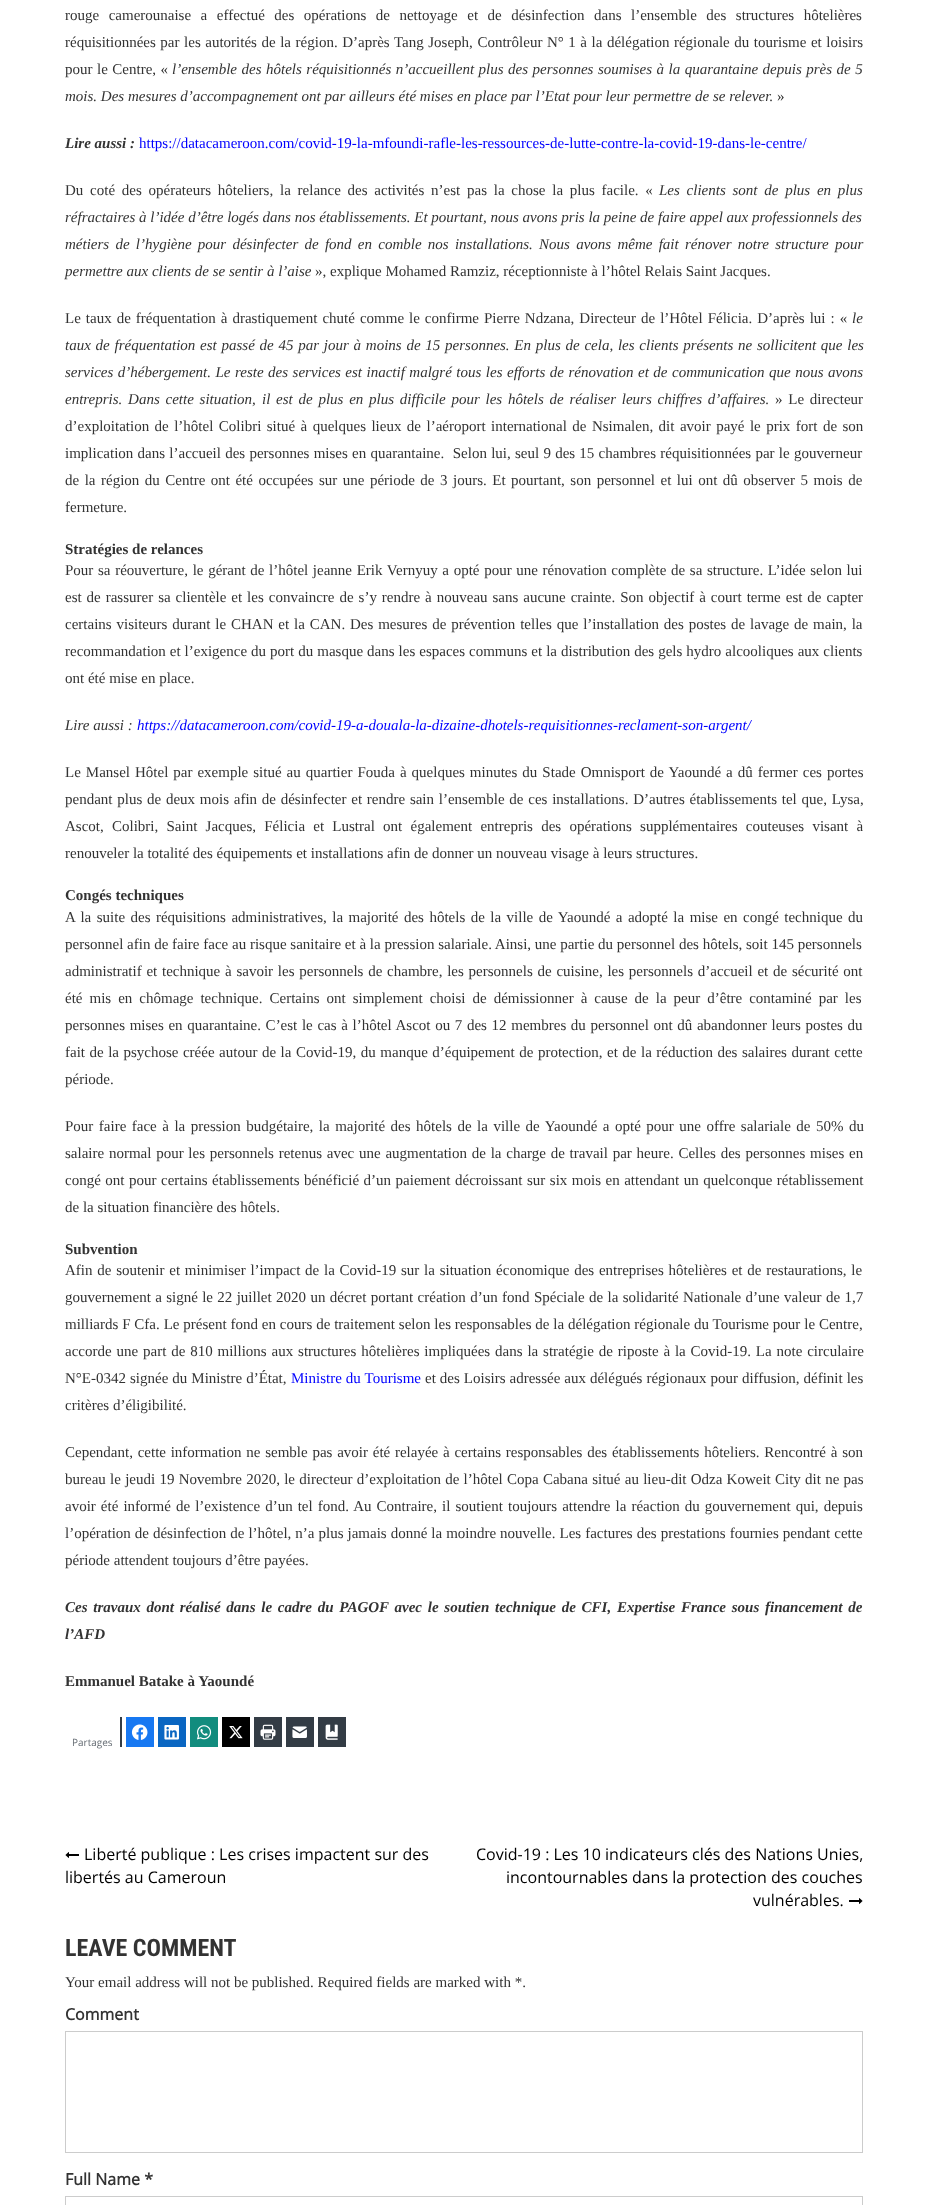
async function draw(canvas) {
  canvas.width = 928;
  canvas.height = 2205;
  const ctx = canvas.getContext('2d');
  ctx.miterLimit = 4;
  ctx.fontKerning = 'normal';
  function label(s, x, y, font, color) {
    ctx.font = font;
    ctx.fillStyle = color;
    ctx.fillText(s, x, y);
  }
  function rect(x, y, w, h, color) {
    ctx.fillStyle = color;
    ctx.fillRect(x, y, w, h);
  }
  async function image(src, x, y, w, h) {
    const img = new Image();
    img.src = src;
    await img.decode();
    ctx.drawImage(img, x, y, w, h);
  }

  rect(0, 0, 928, 2205, '#fff');
  ctx.wordSpacing = '5.75px';
  label('rouge camerounaise a effectué des opérations de nettoyage et de désinfection dans l’ensemble des structures hôtelières', 65, 20, '15px Liberation Serif', '#333');
  ctx.wordSpacing = '0.8px';
  label('réquisitionnées par les autorités de la région. D’après Tang Joseph, Contrôleur N° 1 à la délégation régionale du tourisme et loisirs', 65, 47, '15px Liberation Serif', '#333');
  ctx.wordSpacing = '0.75px';
  label('pour le Centre, «', 65, 74, '15px Liberation Serif', '#333');
  label('l’ensemble des hôtels réquisitionnés n’accueillent plus des personnes soumises à la quarantaine depuis près de 5', 172, 74, 'italic 15px Liberation Serif', '#333');
  ctx.wordSpacing = '0px';
  label('mois. Des mesures d’accompagnement ont par ailleurs été mises en place par l’Etat pour leur permettre de se relever.', 65, 101, 'italic 15px Liberation Serif', '#333');
  label('»', 777, 101, '15px Liberation Serif', '#333');
  label('Lire aussi :', 65, 148, 'italic bold 15px Liberation Serif', '#333');
  label('https://datacameroon.com/covid-19-la-mfoundi-rafle-les-ressources-de-lutte-contre-la-covid-19-dans-le-centre/', 139, 148, '15px Liberation Serif', '#00f');
  ctx.wordSpacing = '3px';
  label('Du coté des opérateurs hôteliers,', 65, 195, '15px Liberation Serif', '#333');
  label('la relance des activités n’est pas la chose la plus facile. «', 280, 195, '15px Liberation Serif', '#333');
  label('Les clients sont de plus en plus', 659, 195, 'italic 15px Liberation Serif', '#333');
  ctx.wordSpacing = '0px';
  label('réfractaires à l’idée d’être logés dans nos établissements. Et pourtant, nous avons pris la peine de faire appel aux professionnels des', 65, 222, 'italic 15px Liberation Serif', '#333');
  ctx.wordSpacing = '2.5px';
  label('métiers de l’hygiène pour désinfecter de fond en comble nos installations. Nous avons même fait rénover notre structure pour', 65, 249, 'italic 15px Liberation Serif', '#333');
  ctx.wordSpacing = '0px';
  label('permettre aux clients de se sentir à l’aise', 65, 276, 'italic 15px Liberation Serif', '#333');
  label('», explique Mohamed Ramziz, réceptionniste à l’hôtel Relais Saint Jacques.', 315, 276, '15px Liberation Serif', '#333');
  ctx.wordSpacing = '1.25px';
  label('Le taux de fréquentation à drastiquement chuté comme le confirme Pierre Ndzana, Directeur de l’Hôtel Félicia. D’après lui : «', 65, 323, '15px Liberation Serif', '#333');
  ctx.wordSpacing = '0px';
  label('le', 852, 323, 'italic 15px Liberation Serif', '#333');
  ctx.wordSpacing = '1px';
  label('taux de fréquentation est passé de 45 par jour à moins de 15 personnes. En plus de cela, les clients présents ne sollicitent que les', 65, 350, 'italic 15px Liberation Serif', '#333');
  ctx.wordSpacing = '0.75px';
  label('services d’hébergement. Le reste des services est inactif malgré tous les efforts de rénovation et de communication que nous avons', 65, 377, 'italic 15px Liberation Serif', '#333');
  ctx.wordSpacing = '2px';
  label('entrepris. Dans cette situation,', 65, 404, 'italic 15px Liberation Serif', '#333');
  label('il est de plus en plus difficile pour les hôtels de réaliser leurs chiffres d’affaires.', 262, 404, 'italic 15px Liberation Serif', '#333');
  label('» Le directeur', 775, 404, '15px Liberation Serif', '#333');
  ctx.wordSpacing = '1.7px';
  label('d’exploitation de l’hôtel Colibri situé à quelques lieux de l’aéroport international de Nsimalen, dit avoir payé le prix fort de son', 65, 431, '15px Liberation Serif', '#333');
  ctx.wordSpacing = '0.5px';
  label('implication dans l’accueil des personnes mises en quarantaine.  Selon lui, seul 9 des 15 chambres réquisitionnées par le gouverneur', 65, 458, '15px Liberation Serif', '#333');
  ctx.wordSpacing = '1.75px';
  label('de la région du Centre ont été occupées sur une période de 3 jours. Et pourtant, son personnel et lui ont dû observer 5 mois de', 65, 485, '15px Liberation Serif', '#333');
  ctx.wordSpacing = '0px';
  label('fermeture.', 65, 512, '15px Liberation Serif', '#333');
  label('Stratégies de relances', 65, 554, 'bold 15px Liberation Serif', '#333');
  ctx.wordSpacing = '0.9px';
  label('Pour sa réouverture, le gérant de l’hôtel jeanne Erik Vernyuy a opté pour une rénovation complète de sa structure. L’idée selon lui', 65, 575, '15px Liberation Serif', '#333');
  ctx.wordSpacing = '1.2px';
  label('est de rassurer sa clientèle et les convaincre de s’y rendre à nouveau sans aucune crainte. Son objectif à court terme est de capter', 65, 602, '15px Liberation Serif', '#333');
  ctx.wordSpacing = '1.1px';
  label('certains visiteurs durant le CHAN et la CAN. Des mesures de prévention telles que l’installation des postes de lavage de main, la', 65, 629, '15px Liberation Serif', '#333');
  ctx.wordSpacing = '0.25px';
  label('recommandation et l’exigence du port du masque dans les espaces communs et la distribution des gels hydro alcooliques aux clients', 65, 656, '15px Liberation Serif', '#333');
  ctx.wordSpacing = '0px';
  label('ont été mise en place.', 65, 683, '15px Liberation Serif', '#333');
  label('Lire aussi :', 65, 730, 'italic 15px Liberation Serif', '#333');
  label('https://datacameroon.com/covid-19-a-douala-la-dizaine-dhotels-requisitionnes-reclament-son-argent/', 137, 730, 'italic 15px Liberation Serif', '#00f');
  ctx.wordSpacing = '1.25px';
  label('Le Mansel Hôtel par exemple situé au quartier Fouda à quelques minutes du Stade Omnisport de Yaoundé a dû fermer ces portes', 65, 777, '15px Liberation Serif', '#333');
  ctx.wordSpacing = '1px';
  label('pendant plus de deux mois afin de désinfecter et rendre sain l’ensemble de ces installations. D’autres établissements tel que, Lysa,', 65, 804, '15px Liberation Serif', '#333');
  ctx.wordSpacing = '4.5px';
  label('Ascot, Colibri, Saint Jacques, Félicia et Lustral ont également entrepris des opérations supplémentaires couteuses visant à', 65, 831, '15px Liberation Serif', '#333');
  ctx.wordSpacing = '0px';
  label('renouveler la totalité des équipements et installations afin de donner un nouveau visage à leurs structures.', 65, 858, '15px Liberation Serif', '#333');
  label('Congés techniques', 65, 900, 'bold 15px Liberation Serif', '#333');
  ctx.wordSpacing = '1.7px';
  label('A la suite des réquisitions administratives, la majorité des hôtels de la ville de Yaoundé a adopté la mise en congé technique du', 65, 922, '15px Liberation Serif', '#333');
  ctx.wordSpacing = '0px';
  label('personnel afin de faire face au risque sanitaire et à la pression salariale. Ainsi, une partie du personnel des hôtels, soit 145 personnels', 65, 949, '15px Liberation Serif', '#333');
  ctx.wordSpacing = '1px';
  label('administratif et technique à savoir les personnels de chambre, les personnels de cuisine, les personnels d’accueil et de sécurité ont', 65, 976, '15px Liberation Serif', '#333');
  ctx.wordSpacing = '3.25px';
  label('été mis en chômage technique. Certains ont simplement choisi de démissionner à cause de la peur d’être contaminé par les', 65, 1003, '15px Liberation Serif', '#333');
  ctx.wordSpacing = '0.9px';
  label('personnes mises en quarantaine. C’est le cas à l’hôtel Ascot ou 7 des 12 membres du personnel ont dû abandonner leurs postes du', 65, 1030, '15px Liberation Serif', '#333');
  ctx.wordSpacing = '0.75px';
  label('fait de la psychose créée autour de la Covid-19, du manque d’équipement de protection, et de la réduction des salaires durant cette', 65, 1057, '15px Liberation Serif', '#333');
  ctx.wordSpacing = '0px';
  label('période.', 65, 1084, '15px Liberation Serif', '#333');
  ctx.wordSpacing = '1.75px';
  label('Pour faire face à la pression budgétaire, la majorité des hôtels de la ville de Yaoundé a opté pour une offre salariale de 50% du', 65, 1131, '15px Liberation Serif', '#333');
  ctx.wordSpacing = '1px';
  label('salaire normal pour les personnels retenus avec une augmentation de la charge de travail par heure. Celles des personnes mises en', 65, 1158, '15px Liberation Serif', '#333');
  ctx.wordSpacing = '0.75px';
  label('congé ont pour certains établissements bénéficié d’un paiement décroissant sur six mois en attendant un quelconque rétablissement', 65, 1185, '15px Liberation Serif', '#333');
  ctx.wordSpacing = '0px';
  label('de la situation financière des hôtels.', 65, 1212, '15px Liberation Serif', '#333');
  label('Subvention', 65, 1254, 'bold 15px Liberation Serif', '#333');
  ctx.wordSpacing = '1px';
  label('Afin de soutenir et minimiser l’impact de la Covid-19 sur la situation économique des entreprises hôtelières et de restaurations, le', 65, 1275, '15px Liberation Serif', '#333');
  ctx.wordSpacing = '0.6px';
  label('gouvernement a signé le 22 juillet 2020 un décret portant création d’un fond Spéciale de la solidarité Nationale d’une valeur de 1,7', 65, 1302, '15px Liberation Serif', '#333');
  ctx.wordSpacing = '0.1px';
  label('milliards F Cfa. Le présent fond en cours de traitement selon les responsables de la délégation régionale du Tourisme pour le Centre,', 65, 1329, '15px Liberation Serif', '#333');
  ctx.wordSpacing = '1.1px';
  label('accorde une part de 810 millions aux structures hôtelières impliquées dans la stratégie de riposte à la Covid-19. La note circulaire', 65, 1356, '15px Liberation Serif', '#333');
  ctx.wordSpacing = '0.25px';
  label('N°E-0342 signée du Ministre d’État,', 65, 1383, '15px Liberation Serif', '#333');
  label('Ministre du Tourisme', 291, 1383, '15px Liberation Serif', '#00f');
  label('et des Loisirs adressée aux délégués régionaux pour diffusion, définit les', 425, 1383, '15px Liberation Serif', '#333');
  ctx.wordSpacing = '0px';
  label('critères d’éligibilité.', 65, 1410, '15px Liberation Serif', '#333');
  ctx.wordSpacing = '1px';
  label('Cependant, cette information ne semble pas avoir été relayée à certains responsables des établissements hôteliers. Rencontré à son', 65, 1457, '15px Liberation Serif', '#333');
  ctx.wordSpacing = '0.5px';
  label('bureau le jeudi 19 Novembre 2020, le directeur d’exploitation de l’hôtel Copa Cabana situé au lieu-dit Odza Koweit City dit ne pas', 65, 1484, '15px Liberation Serif', '#333');
  ctx.wordSpacing = '1.3px';
  label('avoir été informé de l’existence d’un tel fond. Au Contraire, il soutient toujours attendre la réaction du gouvernement qui, depuis', 65, 1511, '15px Liberation Serif', '#333');
  ctx.wordSpacing = '0.25px';
  label('l’opération de désinfection de l’hôtel, n’a plus jamais donné la moindre nouvelle. Les factures des prestations fournies pendant cette', 65, 1538, '15px Liberation Serif', '#333');
  ctx.wordSpacing = '0px';
  label('période attendent toujours d’être payées.', 65, 1565, '15px Liberation Serif', '#333');
  ctx.wordSpacing = '2px';
  label('Ces travaux dont réalisé dans le cadre du PAGOF avec le soutien technique de CFI, Expertise France sous financement de', 65, 1612, 'italic bold 15px Liberation Serif', '#333');
  ctx.wordSpacing = '0px';
  label('l’AFD', 65, 1639, 'italic bold 15px Liberation Serif', '#333');
  label('Emmanuel Batake à Yaoundé', 65, 1686, 'bold 15px Liberation Serif', '#333');
  rect(120, 1717, 2, 30, '#333c45');
  label('Partages', 72, 1746, '10px Open Sans', '#666d74');
  rect(126, 1717, 28, 30, '#1778f2');
  await image('assets/img1.png', 131, 1724, 17, 16);
  rect(158, 1717, 28, 30, '#0a66c2');
  await image('assets/img2.png', 164, 1725, 15, 15);
  rect(190, 1717, 28, 30, '#128c7e');
  await image('assets/img3.png', 197, 1725, 15, 15);
  rect(222, 1717, 28, 30, '#000');
  await image('assets/img4.png', 229, 1726, 14, 13);
  rect(254, 1717, 28, 30, '#333c45');
  await image('assets/img5.png', 260, 1724, 16, 16);
  rect(286, 1717, 28, 30, '#333c45');
  await image('assets/img6.png', 292, 1726, 15, 12);
  rect(318, 1717, 28, 30, '#333c45');
  await image('assets/img7.png', 325, 1724, 13, 16);
  await image('assets/img8.png', 65, 1852, 14, 6);
  label('Liberté publique : Les crises impactent sur des', 84, 1860, '16px Open Sans', '#000');
  label('libertés au Cameroun', 65, 1883, '16px Open Sans', '#000');
  label('Covid-19 : Les 10 indicateurs clés des Nations Unies,', 476, 1860, '16px Open Sans', '#000');
  label('incontournables dans la protection des couches', 506, 1883, '16px Open Sans', '#000');
  label('vulnérables.', 753, 1906, '16px Open Sans', '#000');
  await image('assets/img9.png', 849, 1898, 14, 6);
  label('LEAVE COMMENT', 65, 1956, 'bold 24px Roboto Condensed', '#333');
  label('Your email address will not be published. Required fields are marked with *.', 65, 1987, '15px Liberation Serif', '#333');
  label('Comment', 65, 2020, 'bold 16px Open Sans', '#333');
  ctx.strokeStyle = '#ccc';
  ctx.strokeRect(65.5, 2031.5, 797, 121);
  label('Full Name *', 65, 2185, 'bold 16px Open Sans', '#333');
  ctx.strokeRect(65.5, 2196.5, 797, 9);
}

draw(document.querySelector('canvas'));
